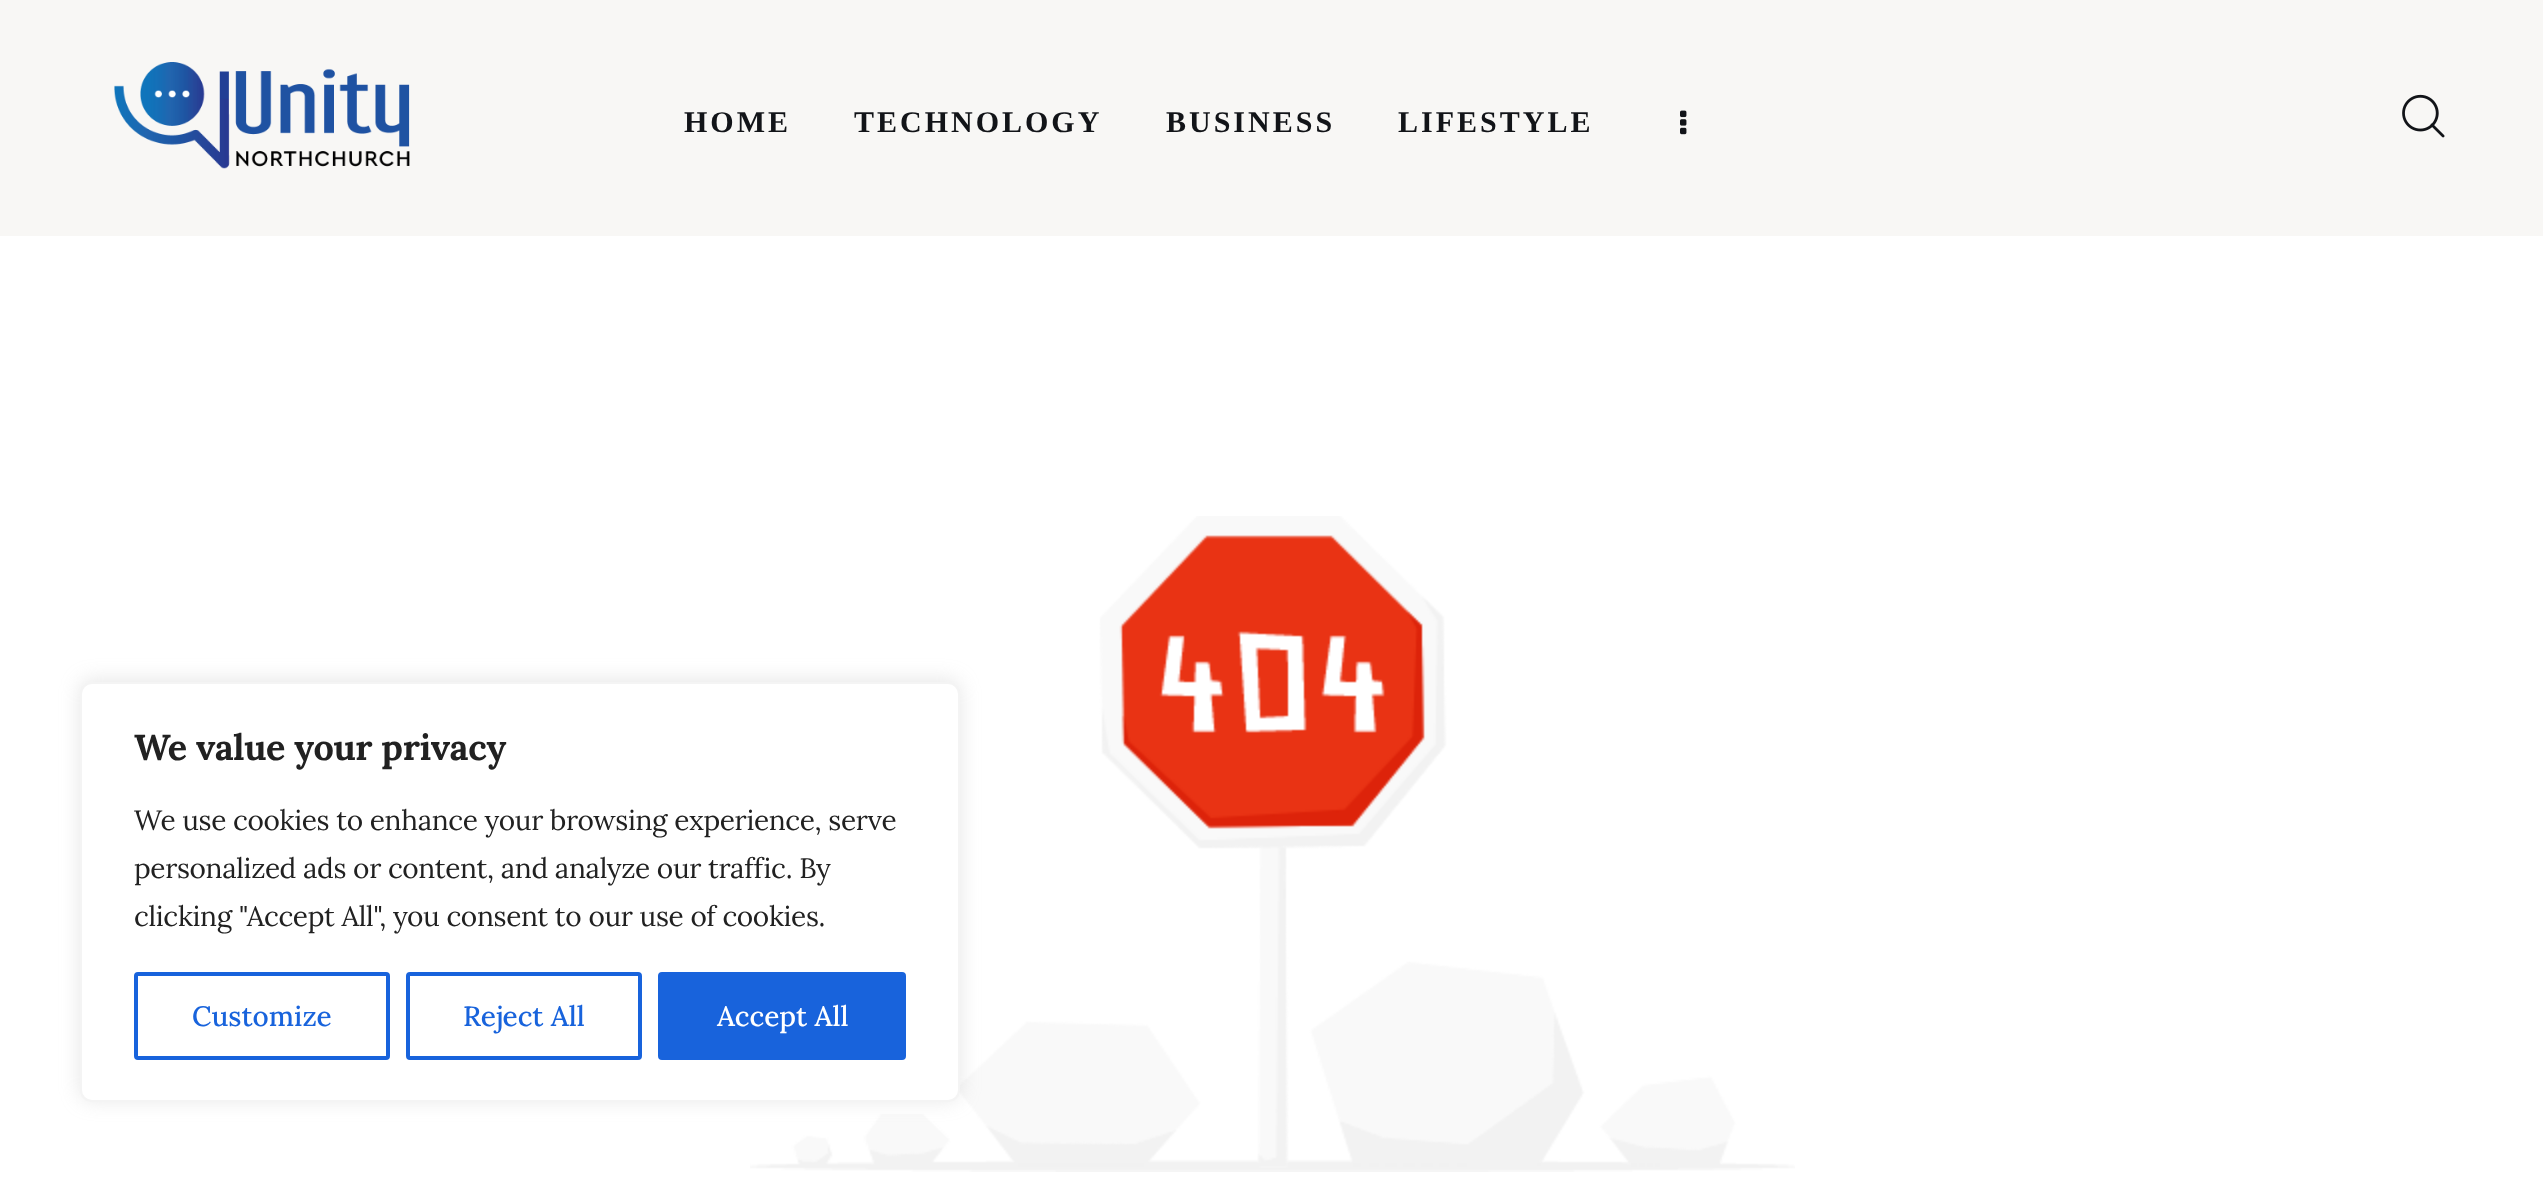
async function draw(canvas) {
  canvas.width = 2543;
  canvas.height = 1182;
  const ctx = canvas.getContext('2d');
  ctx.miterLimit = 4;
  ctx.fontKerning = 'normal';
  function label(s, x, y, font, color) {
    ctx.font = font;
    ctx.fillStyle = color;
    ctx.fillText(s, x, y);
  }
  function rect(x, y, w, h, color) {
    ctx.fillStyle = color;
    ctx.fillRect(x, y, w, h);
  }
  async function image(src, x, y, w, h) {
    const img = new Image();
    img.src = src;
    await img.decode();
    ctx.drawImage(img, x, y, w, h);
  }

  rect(0, 0, 2543, 1182, '#fff');
  rect(0, 0, 2543, 236, '#f8f7f5');
  await image('assets/img1.png', 114, 62, 296, 107);
  ctx.letterSpacing = '3px';
  label('HOME', 684, 132, 'bold 30px Liberation Serif', '#121418');
  label('TECHNOLOGY', 854, 132, 'bold 30px Liberation Serif', '#121418');
  label('BUSINESS', 1166, 132, 'bold 30px Liberation Serif', '#121418');
  label('LIFESTYLE', 1398, 132, 'bold 30px Liberation Serif', '#121418');
  await image('assets/img2.png', 1680, 110, 7, 25);
  await image('assets/img3.png', 2402, 94, 43, 44);
  await image('assets/img4.png', 750, 516, 1045, 656);
  ctx.fillStyle = '#acabab4d';
  ctx.filter = 'blur(10px)';
  ctx.beginPath();
  ctx.roundRect(80, 680, 880, 420, 12);
  ctx.fill();
  ctx.filter = 'none';
  ctx.fillStyle = '#fff';
  ctx.beginPath();
  ctx.roundRect(81, 683, 878, 418, 11);
  ctx.fill();
  ctx.strokeStyle = '#f4f4f4';
  ctx.lineWidth = 2;
  ctx.stroke();
  ctx.letterSpacing = '-0.35px';
  label('We value your privacy', 134, 760, 'bold 36px Lora', '#212121');
  label('We use cookies to enhance your browsing experience, serve', 134, 830, '28px Lora', '#212121');
  label('personalized ads or content, and analyze our traffic. By', 134, 878, '28px Lora', '#212121');
  label('clicking "Accept All", you consent to our use of cookies.', 134, 926, '28px Lora', '#212121');
  ctx.beginPath();
  ctx.roundRect(136, 974, 252, 84, 2);
  ctx.strokeStyle = '#1863dc';
  ctx.lineWidth = 4;
  ctx.stroke();
  ctx.letterSpacing = '0px';
  label('Customize', 192, 1026, '500 28px Lora', '#1863dc');
  ctx.beginPath();
  ctx.roundRect(408, 974, 232, 84, 2);
  ctx.stroke();
  label('Reject All', 463, 1026, '500 28px Lora', '#1863dc');
  ctx.beginPath();
  ctx.roundRect(660, 974, 244, 84, 2);
  ctx.fill();
  ctx.stroke();
  label('Accept All', 717, 1026, '500 28px Lora', '#fff');
}

draw(document.querySelector('canvas'));
